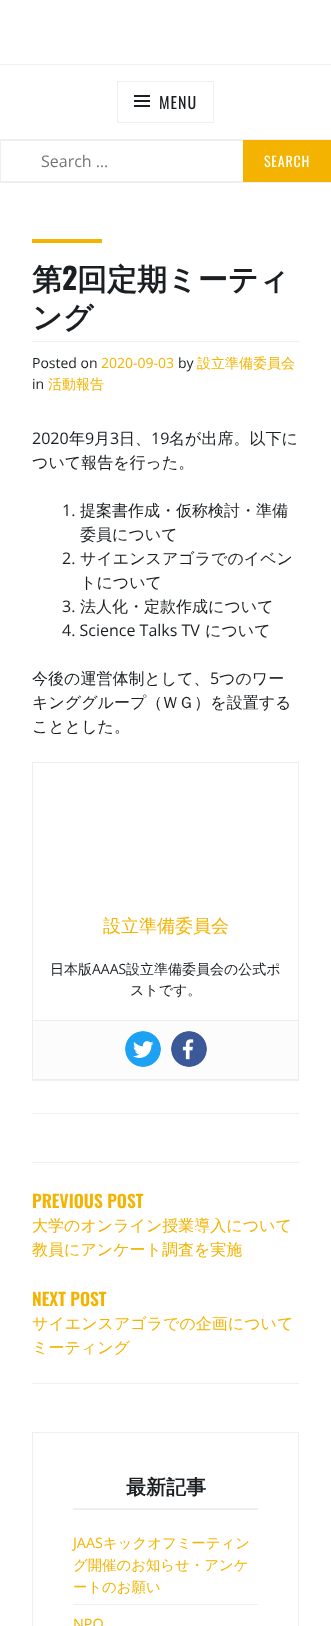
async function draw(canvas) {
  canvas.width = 331;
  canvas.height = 1626;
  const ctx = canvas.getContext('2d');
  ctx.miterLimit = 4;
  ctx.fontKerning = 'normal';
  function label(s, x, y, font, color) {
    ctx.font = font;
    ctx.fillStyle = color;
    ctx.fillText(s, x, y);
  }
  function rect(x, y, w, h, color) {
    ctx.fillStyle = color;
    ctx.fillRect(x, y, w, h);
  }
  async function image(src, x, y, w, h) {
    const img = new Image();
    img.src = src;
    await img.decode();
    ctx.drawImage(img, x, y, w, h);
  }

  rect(0, 0, 331, 1626, '#fff');
  rect(0, 182, 331, 1, '#efefef');
  rect(0, 64, 331, 1, '#efefef');
  rect(0, 139, 331, 1, '#efefef');
  ctx.strokeStyle = '#efefef';
  ctx.strokeRect(117.5, 81.5, 96, 41);
  await image('assets/img1.png', 134, 95, 16, 12);
  ctx.letterSpacing = '1px';
  label('MENU', 159, 109, '16px Oswald', '#1b1f22');
  ctx.strokeRect(0.5, 140.5, 330, 41);
  ctx.letterSpacing = '0px';
  label('Search …', 41, 167, '16px Open Sans', '#757575');
  rect(243, 140, 88, 42, '#f4b300');
  ctx.letterSpacing = '0.75px';
  label('SEARCH', 264, 167, '14px Oswald', '#fff');
  rect(32, 239, 70, 4, '#f4b300');
  ctx.letterSpacing = '0px';
  label('第', 32, 290, 'bold 30px WenQuanYi Zen Hei', '#1b1f22');
  label('2', 62, 290, 'bold 30px Oswald', '#1b1f22');
  label('回定期ミーティ', 77, 290, 'bold 30px WenQuanYi Zen Hei', '#1b1f22');
  label('ング', 32, 328, 'bold 30px WenQuanYi Zen Hei', '#1b1f22');
  rect(32, 341, 267, 1, '#efefef');
  label('Posted on', 32, 368, '14px Open Sans', '#1b1f22');
  label('2020-09-03', 101, 368, '14px Open Sans', '#f4b300');
  label('by', 178, 368, '14px Open Sans', '#1b1f22');
  label('設立準備委員会', 197, 368, '500 14px WenQuanYi Zen Hei', '#f4b300');
  label('in', 32, 389, '14px Open Sans', '#1b1f22');
  label('活動報告', 48, 389, '500 14px WenQuanYi Zen Hei', '#f4b300');
  label('2020', 32, 444, '16px Open Sans', '#1b1f22');
  label('年', 69, 444, '500 16px WenQuanYi Zen Hei', '#1b1f22');
  label('9', 85, 444, '16px Open Sans', '#1b1f22');
  label('月', 94, 444, '500 16px WenQuanYi Zen Hei', '#1b1f22');
  label('3', 110, 444, '16px Open Sans', '#1b1f22');
  label('日、', 119, 444, '500 16px WenQuanYi Zen Hei', '#1b1f22');
  label('19', 151, 444, '16px Open Sans', '#1b1f22');
  label('名が出席。以下に', 169, 444, '500 16px WenQuanYi Zen Hei', '#1b1f22');
  label('ついて報告を行った。', 32, 468, '500 16px WenQuanYi Zen Hei', '#1b1f22');
  label('1.', 62, 516, '16px Open Sans', '#1b1f22');
  label('提案書作成・仮称検討・準備', 80, 516, '500 16px WenQuanYi Zen Hei', '#1b1f22');
  label('委員について', 80, 540, '500 16px WenQuanYi Zen Hei', '#1b1f22');
  label('2.', 62, 564, '16px Open Sans', '#1b1f22');
  label('サイエンスアゴラでのイベン', 80, 564, '500 16px WenQuanYi Zen Hei', '#1b1f22');
  label('トについて', 80, 588, '500 16px WenQuanYi Zen Hei', '#1b1f22');
  label('3.', 62, 612, '16px Open Sans', '#1b1f22');
  label('法人化・定款作成について', 80, 612, '500 16px WenQuanYi Zen Hei', '#1b1f22');
  label('4. Science Talks TV', 62, 636, '16px Open Sans', '#1b1f22');
  label('について', 205, 636, '500 16px WenQuanYi Zen Hei', '#1b1f22');
  label('今後の運営体制として、', 32, 684, '500 16px WenQuanYi Zen Hei', '#1b1f22');
  label('5', 210, 684, '16px Open Sans', '#1b1f22');
  label('つのワー', 219, 684, '500 16px WenQuanYi Zen Hei', '#1b1f22');
  label('キンググループ（ＷＧ）を設置する', 32, 708, '500 16px WenQuanYi Zen Hei', '#1b1f22');
  label('こととした。', 32, 732, '500 16px WenQuanYi Zen Hei', '#1b1f22');
  ctx.strokeStyle = '#eee';
  ctx.strokeRect(32.5, 762.5, 266, 317);
  label('設立準備委員会', 103, 932, '500 18px WenQuanYi Zen Hei', '#f4b300');
  label('日本版', 50, 974, '500 14px WenQuanYi Zen Hei', '#1b1f22');
  label('AAAS', 92, 974, '14px Open Sans', '#1b1f22');
  label('設立準備委員会の公式ポ', 126, 974, '500 14px WenQuanYi Zen Hei', '#1b1f22');
  label('ストです。', 130, 995, '500 14px WenQuanYi Zen Hei', '#1b1f22');
  rect(33, 1021, 265, 58, '#fcfcfc');
  rect(33, 1020, 265, 1, '#eee');
  await image('assets/img2.png', 125, 1031, 36, 36);
  await image('assets/img3.png', 171, 1031, 36, 36);
  rect(32, 1080, 267, 1, '#efefef');
  rect(32, 1113, 267, 1, '#efefef');
  rect(32, 1162, 267, 1, '#efefef');
  rect(32, 1383, 267, 1, '#efefef');
  label('PREVIOUS POST', 32, 1208, '600 17.5px Oswald', '#f4b300');
  label('大学のオンライン授業導入について', 32, 1231, '500 16px WenQuanYi Zen Hei', '#f4b300');
  label('教員にアンケート調査を実施', 32, 1255, '500 16px WenQuanYi Zen Hei', '#f4b300');
  label('NEXT POST', 32, 1306, '600 17.5px Oswald', '#f4b300');
  label('サイエンスアゴラでの企画について', 32, 1329, '500 16px WenQuanYi Zen Hei', '#f4b300');
  label('ミーティング', 32, 1353, '500 16px WenQuanYi Zen Hei', '#f4b300');
  ctx.strokeStyle = '#efefef';
  ctx.strokeRect(32.5, 1432.5, 266, 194);
  rect(73, 1508, 185, 2, '#efefef');
  label('最新記事', 126, 1494, 'bold 20px WenQuanYi Zen Hei', '#1b1f22');
  rect(73, 1604, 185, 1, '#efefef');
  label('JAAS', 73, 1548, '14.4px Open Sans', '#f4b300');
  label('キックオフミーティン', 103, 1548, '500 14.4px WenQuanYi Zen Hei', '#f4b300');
  label('グ開催のお知らせ・アンケ', 73, 1570, '500 14.4px WenQuanYi Zen Hei', '#f4b300');
  label('ートのお願い', 73, 1592, '500 14.4px WenQuanYi Zen Hei', '#f4b300');
  label('NPO', 73, 1629, '14.4px Open Sans', '#f4b300');
}

draw(document.querySelector('canvas'));
